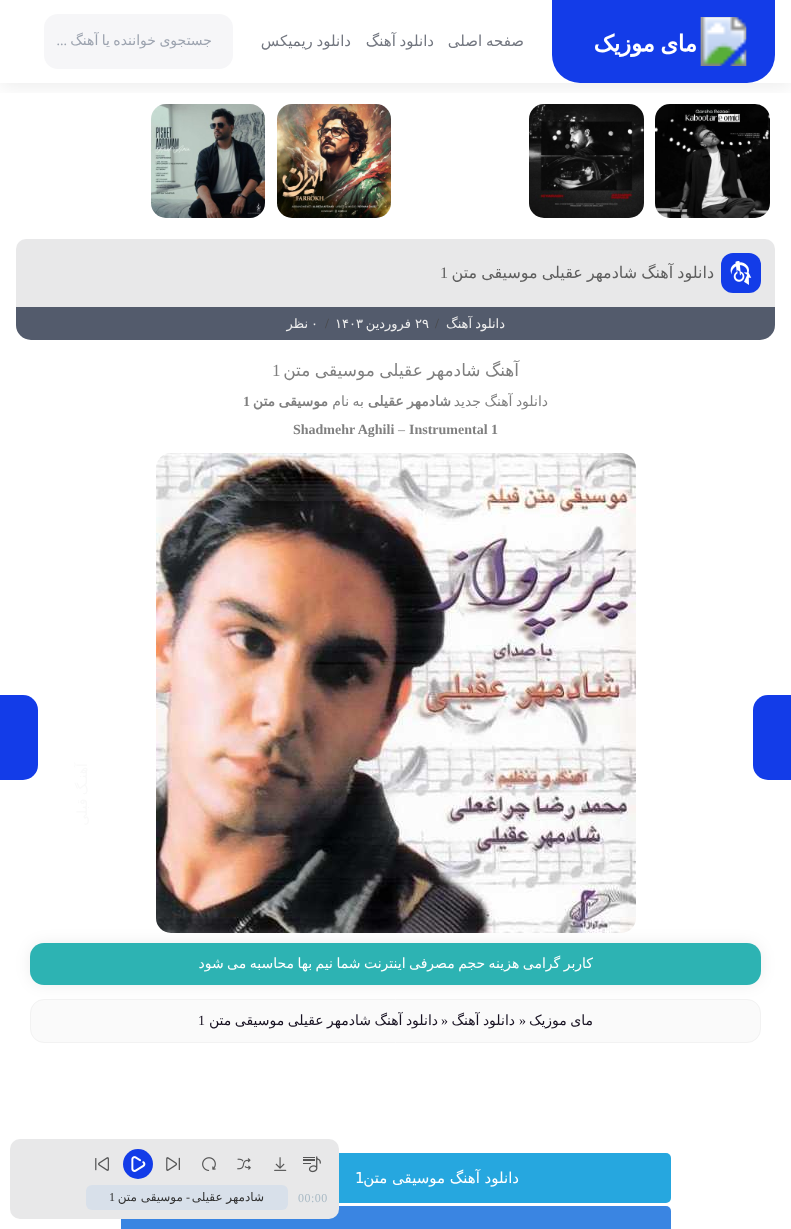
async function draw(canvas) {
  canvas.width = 791;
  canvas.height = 1229;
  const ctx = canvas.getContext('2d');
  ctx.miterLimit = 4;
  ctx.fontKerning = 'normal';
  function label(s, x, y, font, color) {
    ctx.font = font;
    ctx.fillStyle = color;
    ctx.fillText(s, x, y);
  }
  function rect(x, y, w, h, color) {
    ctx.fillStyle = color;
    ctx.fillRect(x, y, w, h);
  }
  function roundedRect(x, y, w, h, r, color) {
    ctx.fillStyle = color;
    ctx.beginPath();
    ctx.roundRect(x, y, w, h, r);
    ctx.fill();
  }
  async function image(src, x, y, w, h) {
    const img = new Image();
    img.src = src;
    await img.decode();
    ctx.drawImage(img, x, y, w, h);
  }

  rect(0, 0, 791, 1229, '#fff');
  ctx.save();
  ctx.beginPath();
  ctx.rect(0, 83, 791, 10);
  ctx.clip();
  ctx.fillStyle = '#00000014';
  ctx.filter = 'blur(10px)';
  ctx.beginPath();
  ctx.rect(0, 3, 791, 83);
  ctx.fill();
  ctx.filter = 'none';
  ctx.restore();
  ctx.fillStyle = '#133ce8';
  ctx.beginPath();
  ctx.roundRect(552, 0, 223, 83, [0, 0, 28, 28]);
  ctx.fill();
  await image('assets/img1.png', 595, 17, 152, 49);
  ctx.wordSpacing = '-1px';
  ctx.direction = 'rtl';
  label('صفحه اصلی', 524, 46, '15px DejaVu Sans', '#737780');
  label('دانلود آهنگ', 434, 46, '15px DejaVu Sans', '#737780');
  label('دانلود ریمیکس', 351, 46, '15px DejaVu Sans', '#737780');
  roundedRect(44, 14, 189, 55, 14, '#f6f6f8');
  ctx.save();
  ctx.beginPath();
  ctx.rect(34, 32, 178, 17);
  ctx.clip();
  label('جستجوی خواننده یا آهنگ', 212, 45, '14px DejaVu Sans', '#9ca3af');
  ctx.restore();
  ctx.wordSpacing = '0px';
  label('...', 67, 45, '14px Liberation Serif', '#9ca3af');
  await image('assets/img2.png', 655, 104, 115, 114);
  await image('assets/img3.png', 529, 104, 115, 114);
  await image('assets/img4.png', 277, 104, 114, 114);
  await image('assets/img5.png', 151, 104, 114, 114);
  ctx.fillStyle = '#133ce8';
  ctx.beginPath();
  ctx.roundRect(753, 695, 38, 85, [15, 0, 0, 15]);
  ctx.fill();
  ctx.wordSpacing = '-1px';
  ctx.font = '14px DejaVu Sans';
  ctx.fillStyle = '#f9f9f9';
  ctx.save();
  ctx.translate(841, 765);
  ctx.rotate(-90 * Math.PI / 180);
  ctx.fillText('آهـنگ بعدی', 0, 0);
  ctx.restore();
  ctx.fillStyle = '#e8e8e9';
  ctx.beginPath();
  ctx.roundRect(16, 239, 759, 68, [10, 10, 0, 0]);
  ctx.fill();
  roundedRect(721, 253, 40, 40, 12, '#133ce8');
  await image('assets/img6.png', 730, 261, 22, 24);
  label('دانلود آهنگ شادمهر عقیلی موسیقی متن', 714, 278, '16px DejaVu Sans', '#5e5e5e');
  ctx.wordSpacing = '0px';
  ctx.direction = 'ltr';
  label('1', 440, 278, '16px Liberation Serif', '#5e5e5e');
  ctx.fillStyle = '#535b6c';
  ctx.beginPath();
  ctx.roundRect(16, 307, 759, 33, [0, 0, 15, 15]);
  ctx.fill();
  ctx.wordSpacing = '-1px';
  ctx.direction = 'rtl';
  label('دانلود آهنگ', 505, 328, '13px DejaVu Sans', '#eee');
  ctx.wordSpacing = '0px';
  ctx.direction = 'ltr';
  label('/', 435, 328, '14px Liberation Serif', '#474747');
  label('۲۹', 415, 328, '13px DejaVu Sans', '#eee');
  ctx.direction = 'rtl';
  label('فروردین', 411, 328, '13px DejaVu Sans', '#eee');
  ctx.direction = 'ltr';
  label('۱۴۰۳', 335, 328, '13px DejaVu Sans', '#eee');
  label('/', 325, 328, '14px Liberation Serif', '#474747');
  label('۰', 311, 328, '13px DejaVu Sans', '#eee');
  ctx.direction = 'rtl';
  label('نظر', 308, 328, '13px DejaVu Sans', '#eee');
  ctx.wordSpacing = '-1px';
  label('آهنگ شادمهر عقیلی موسیقی متن', 519, 376, '17px DejaVu Sans', '#808080');
  ctx.wordSpacing = '0px';
  ctx.direction = 'ltr';
  label('1', 272, 376, '17px Liberation Serif', '#808080');
  ctx.wordSpacing = '-1px';
  ctx.direction = 'rtl';
  label('دانلود آهنگ جدید', 548, 406, '14px DejaVu Sans', '#808080');
  label('شادمهر عقیلی', 451, 406, 'bold 14px DejaVu Sans', '#808080');
  label('به نام', 364, 406, '14px DejaVu Sans', '#808080');
  label('موسیقی متن', 328, 406, 'bold 14px DejaVu Sans', '#808080');
  ctx.wordSpacing = '0px';
  ctx.direction = 'ltr';
  label('1', 243, 406, 'bold 14px Liberation Serif', '#808080');
  label('Instrumental 1', 409, 434, 'bold 14px Liberation Serif', '#808080');
  label('–', 398, 434, '14px Liberation Serif', '#808080');
  label('Shadmehr Aghili', 293, 434, 'bold 14px Liberation Serif', '#808080');
  ctx.fillStyle = '#00000012';
  ctx.filter = 'blur(7.5px)';
  ctx.beginPath();
  ctx.roundRect(30, 943, 731, 42, 14);
  ctx.fill();
  ctx.filter = 'none';
  await image('assets/img7.png', 156, 453, 480, 480);
  roundedRect(30, 943, 731, 42, 14, '#2db3b3');
  ctx.wordSpacing = '-1px';
  ctx.direction = 'rtl';
  label('کاربر گرامی هزینه حجم مصرفی اینترنت شما نیم بها محاسبه می شود', 593, 968, '14px DejaVu Sans', '#fff');
  ctx.fillStyle = '#fafafa';
  ctx.beginPath();
  ctx.roundRect(30.5, 999.5, 730, 43, 13.5);
  ctx.fill();
  ctx.strokeStyle = '#f2f2f2';
  ctx.stroke();
  label('مای موزیک', 593, 1025, '14px DejaVu Sans', '#171121');
  ctx.wordSpacing = '0px';
  ctx.direction = 'ltr';
  label('»', 519, 1025, '14px Liberation Serif', '#171121');
  ctx.wordSpacing = '-1px';
  ctx.direction = 'rtl';
  label('دانلود آهنگ', 515, 1025, '14px DejaVu Sans', '#171121');
  ctx.wordSpacing = '0px';
  ctx.direction = 'ltr';
  label('»', 441, 1025, '14px Liberation Serif', '#171121');
  ctx.wordSpacing = '-1px';
  ctx.direction = 'rtl';
  label('دانلود آهنگ شادمهر عقیلی موسیقی متن', 438, 1025, '14px DejaVu Sans', '#171121');
  ctx.wordSpacing = '0px';
  ctx.direction = 'ltr';
  label('1', 198, 1025, '14px Liberation Serif', '#171121');
  roundedRect(121, 1153, 550, 50, 5, '#26a7df');
  label('1', 355, 1183, '15px DejaVu Sans', '#fff');
  ctx.direction = 'rtl';
  label('دانلود آهنگ موسیقی متن', 519, 1183, '15px DejaVu Sans', '#fff');
  roundedRect(121, 1206, 550, 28, 5, '#3a85e2');
  ctx.fillStyle = '#133ce8';
  ctx.beginPath();
  ctx.roundRect(0, 695, 38, 85, [0, 15, 15, 0]);
  ctx.fill();
  ctx.wordSpacing = '-1px';
  ctx.font = '14px DejaVu Sans';
  ctx.fillStyle = '#f9f9f9';
  ctx.save();
  ctx.translate(87, 763);
  ctx.rotate(-90 * Math.PI / 180);
  ctx.fillText('آهنـگ قبلی', 0, 0);
  ctx.restore();
  roundedRect(10, 1139, 329, 80, 10, '#e8e8e9');
  await image('assets/img8.png', 303, 1156, 18, 17);
  await image('assets/img9.png', 274, 1157, 13, 14);
  await image('assets/img10.png', 237, 1158, 14, 12);
  await image('assets/img11.png', 202, 1157, 14, 14);
  await image('assets/img12.png', 166, 1157, 14, 14);
  ctx.fillStyle = '#133ce8';
  ctx.beginPath();
  ctx.arc(138, 1164, 15, 0, 2 * Math.PI);
  ctx.fill();
  await image('assets/img13.png', 131, 1156, 15, 16);
  await image('assets/img14.png', 95, 1157, 14, 14);
  ctx.letterSpacing = '0.5px';
  ctx.wordSpacing = '0px';
  ctx.direction = 'ltr';
  label('00:00', 298, 1202, '12px Liberation Serif', '#a9bac5');
  roundedRect(86, 1185, 202, 25, 6, '#d8e0ea');
  ctx.letterSpacing = '0px';
  ctx.direction = 'rtl';
  label('شادمهر عقیلی', 264, 1201, '12px DejaVu Sans', '#333');
  label('-', 190, 1201, '12px Liberation Serif', '#333');
  label('موسیقی متن', 183, 1201, '12px DejaVu Sans', '#333');
  ctx.direction = 'ltr';
  label('1', 109, 1201, '12px Liberation Serif', '#333');
}

draw(document.querySelector('canvas'));
